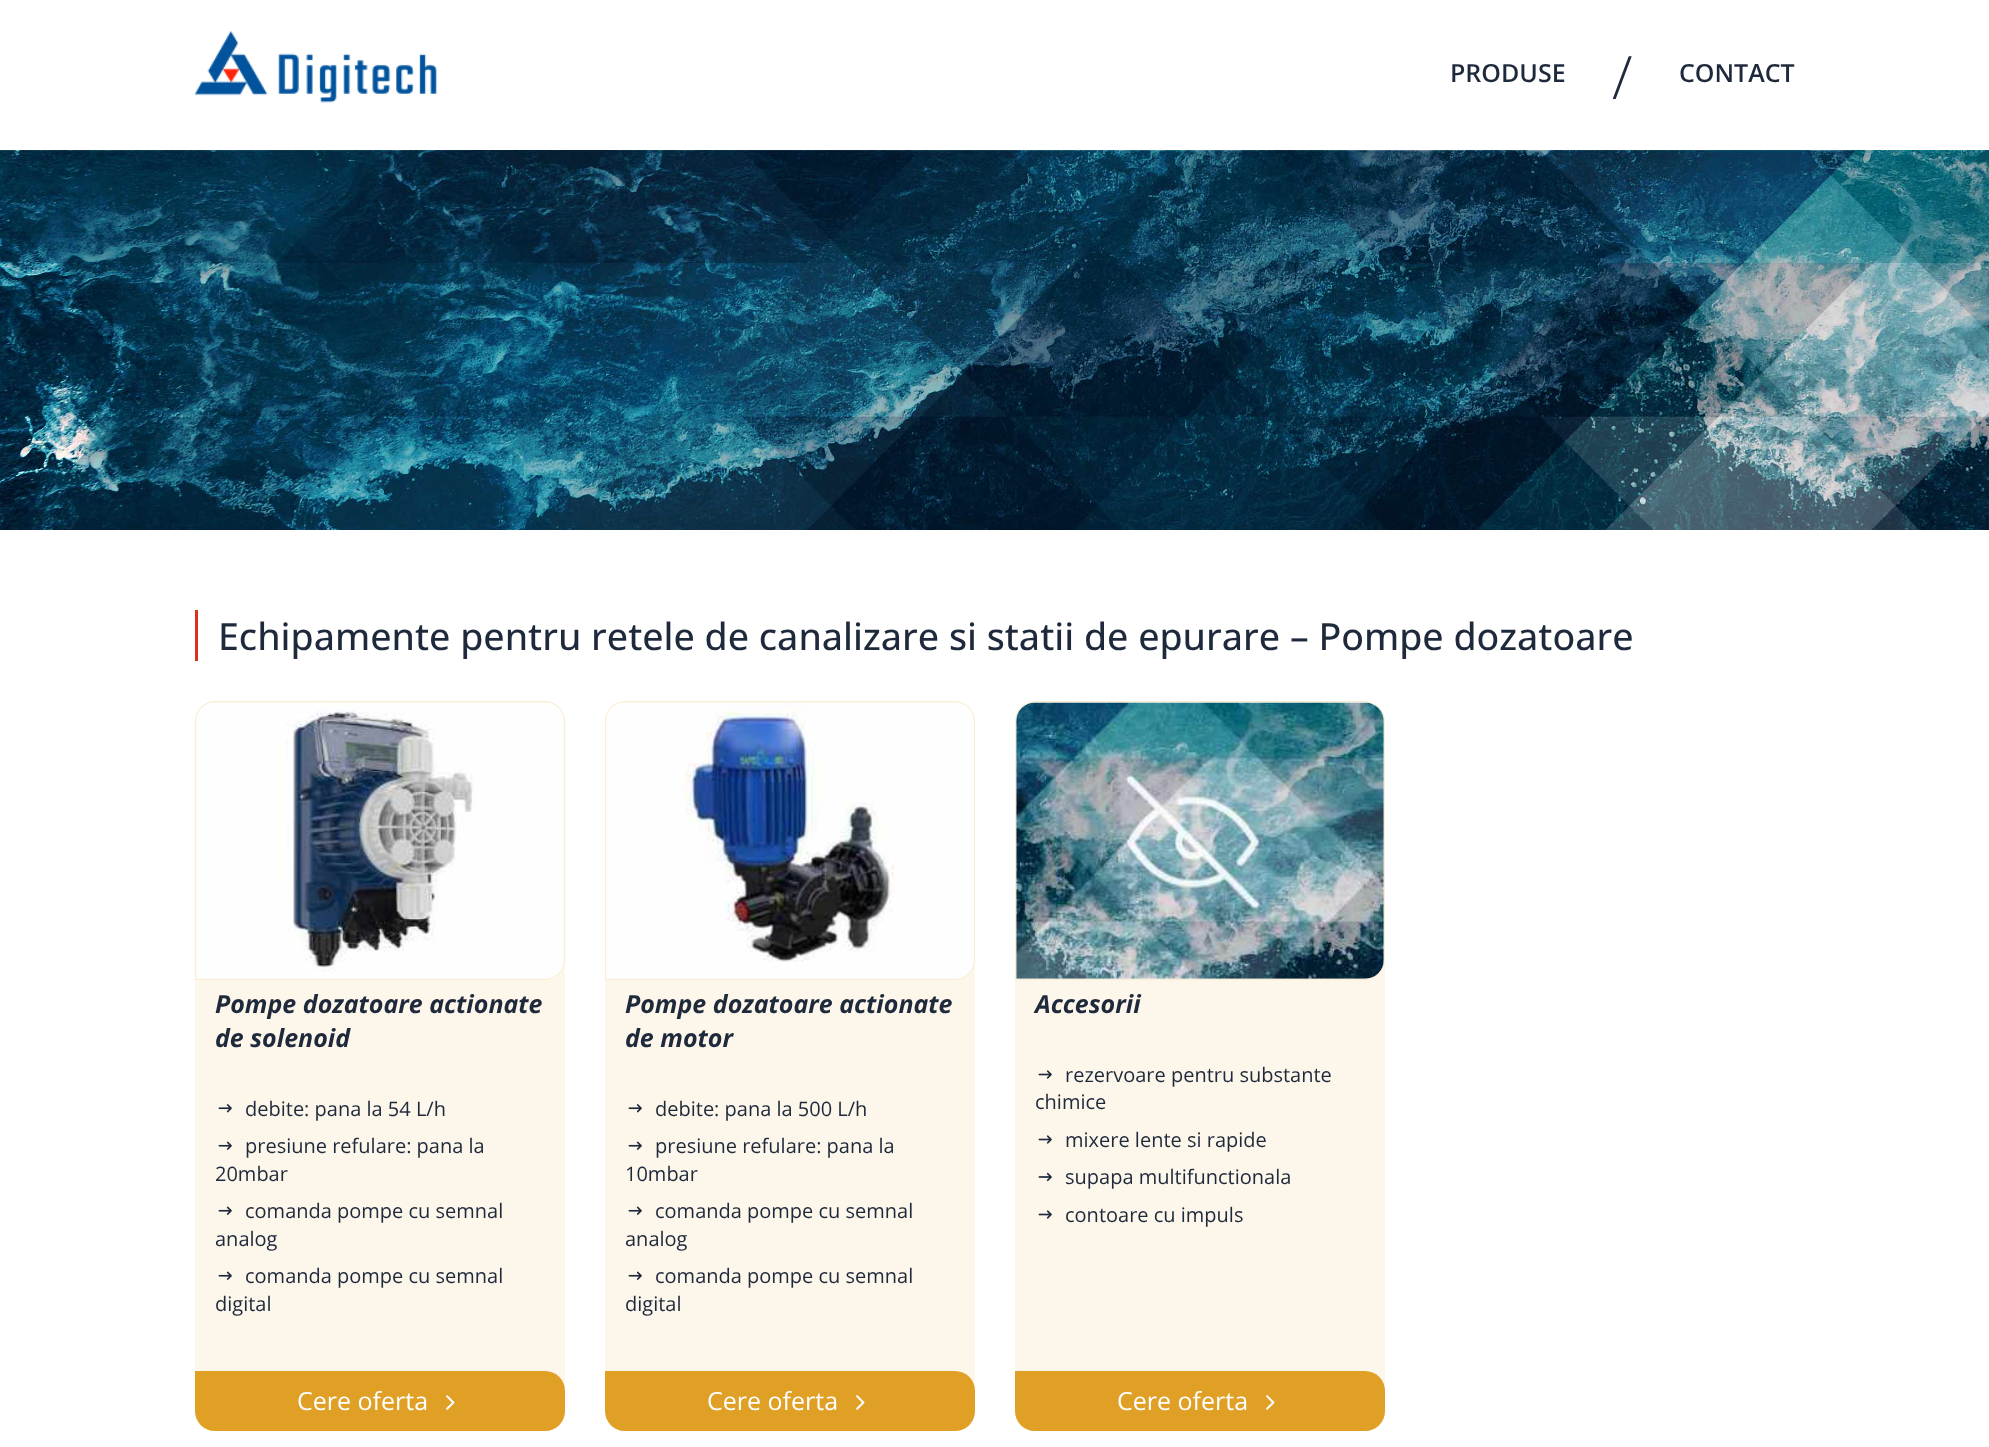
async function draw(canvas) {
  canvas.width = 1989;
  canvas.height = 1447;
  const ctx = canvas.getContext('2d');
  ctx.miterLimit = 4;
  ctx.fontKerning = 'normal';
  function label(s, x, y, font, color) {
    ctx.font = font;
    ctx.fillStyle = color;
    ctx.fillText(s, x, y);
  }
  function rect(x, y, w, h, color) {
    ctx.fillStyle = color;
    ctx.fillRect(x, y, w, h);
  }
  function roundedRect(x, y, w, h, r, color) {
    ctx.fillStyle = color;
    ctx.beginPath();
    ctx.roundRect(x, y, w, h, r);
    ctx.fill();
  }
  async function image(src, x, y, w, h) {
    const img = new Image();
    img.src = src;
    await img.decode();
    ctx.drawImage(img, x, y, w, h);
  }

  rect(0, 0, 1989, 1447, '#fff');
  await image('assets/img1.png', 195, 31, 242, 72);
  label('PRODUSE', 1450, 82, '600 25px Open Sans', '#1e293b');
  label('/', 1612, 99, '300 60px Open Sans', '#1e293b');
  label('CONTACT', 1679, 82, '600 25px Open Sans', '#1e293b');
  await image('assets/img2.png', 0, 150, 1989, 380);
  rect(195, 610, 3, 51, '#da321d');
  label('Echipamente pentru retele de canalizare si statii de epurare – Pompe dozatoare', 218, 650, '500 37.5px Open Sans', '#1e293b');
  roundedRect(195, 701, 370, 730, 20, '#fdf6ea');
  ctx.beginPath();
  ctx.roundRect(195.5, 701.5, 369, 278, [19.5, 19.5, 19.5, 0]);
  ctx.strokeStyle = '#e09e251a';
  ctx.stroke();
  await image('assets/img3.png', 196, 702, 368, 277);
  label('Pompe dozatoare actionate', 215, 1013, 'italic bold 25px Open Sans', '#1e293b');
  label('de solenoid', 215, 1047, 'italic bold 25px Open Sans', '#1e293b');
  await image('assets/img4.png', 218, 1104, 14, 9);
  label('debite: pana la 54 L/h', 245, 1116, '20px Open Sans', '#1e293b');
  await image('assets/img5.png', 218, 1141, 14, 9);
  label('presiune refulare: pana la', 245, 1153, '20px Open Sans', '#1e293b');
  label('20mbar', 215, 1181, '20px Open Sans', '#1e293b');
  await image('assets/img5.png', 218, 1206, 14, 9);
  label('comanda pompe cu semnal', 245, 1218, '20px Open Sans', '#1e293b');
  label('analog', 215, 1246, '20px Open Sans', '#1e293b');
  await image('assets/img5.png', 218, 1271, 14, 9);
  label('comanda pompe cu semnal', 245, 1283, '20px Open Sans', '#1e293b');
  label('digital', 215, 1311, '20px Open Sans', '#1e293b');
  ctx.fillStyle = '#e09f25';
  ctx.beginPath();
  ctx.roundRect(195, 1371, 370, 60, [0, 20, 20, 20]);
  ctx.fill();
  label('Cere oferta', 297, 1410, '25px Open Sans', '#fff');
  await image('assets/img6.png', 446, 1395, 9, 15);
  roundedRect(605, 701, 370, 730, 20, '#fdf6ea');
  ctx.beginPath();
  ctx.roundRect(605.5, 701.5, 369, 278, [19.5, 19.5, 19.5, 0]);
  ctx.stroke();
  await image('assets/img7.png', 606, 702, 368, 277);
  label('Pompe dozatoare actionate', 625, 1013, 'italic bold 25px Open Sans', '#1e293b');
  label('de motor', 625, 1047, 'italic bold 25px Open Sans', '#1e293b');
  await image('assets/img4.png', 628, 1104, 14, 9);
  label('debite: pana la 500 L/h', 655, 1116, '20px Open Sans', '#1e293b');
  await image('assets/img5.png', 628, 1141, 14, 9);
  label('presiune refulare: pana la', 655, 1153, '20px Open Sans', '#1e293b');
  label('10mbar', 625, 1181, '20px Open Sans', '#1e293b');
  await image('assets/img5.png', 628, 1206, 14, 9);
  label('comanda pompe cu semnal', 655, 1218, '20px Open Sans', '#1e293b');
  label('analog', 625, 1246, '20px Open Sans', '#1e293b');
  await image('assets/img5.png', 628, 1271, 14, 9);
  label('comanda pompe cu semnal', 655, 1283, '20px Open Sans', '#1e293b');
  label('digital', 625, 1311, '20px Open Sans', '#1e293b');
  ctx.fillStyle = '#e09f25';
  ctx.beginPath();
  ctx.roundRect(605, 1371, 370, 60, [0, 20, 20, 20]);
  ctx.fill();
  label('Cere oferta', 707, 1410, '25px Open Sans', '#fff');
  await image('assets/img6.png', 856, 1395, 9, 15);
  roundedRect(1015, 701, 370, 730, 20, '#fdf6ea');
  ctx.beginPath();
  ctx.roundRect(1015.5, 701.5, 369, 278, [19.5, 19.5, 19.5, 0]);
  ctx.stroke();
  await image('assets/img8.png', 1016, 702, 368, 277);
  label('Accesorii', 1035, 1013, 'italic bold 25px Open Sans', '#1e293b');
  await image('assets/img9.png', 1038, 1070, 14, 9);
  label('rezervoare pentru substante', 1065, 1082, '20px Open Sans', '#1e293b');
  label('chimice', 1035, 1109, '20px Open Sans', '#1e293b');
  await image('assets/img9.png', 1038, 1135, 14, 9);
  label('mixere lente si rapide', 1065, 1147, '20px Open Sans', '#1e293b');
  await image('assets/img10.png', 1038, 1172, 14, 10);
  label('supapa multifunctionala', 1065, 1184, '20px Open Sans', '#1e293b');
  await image('assets/img9.png', 1038, 1210, 14, 9);
  label('contoare cu impuls', 1065, 1222, '20px Open Sans', '#1e293b');
  ctx.fillStyle = '#e09f25';
  ctx.beginPath();
  ctx.roundRect(1015, 1371, 370, 60, [0, 20, 20, 20]);
  ctx.fill();
  label('Cere oferta', 1117, 1410, '25px Open Sans', '#fff');
  await image('assets/img6.png', 1266, 1395, 9, 15);
}

draw(document.querySelector('canvas'));
